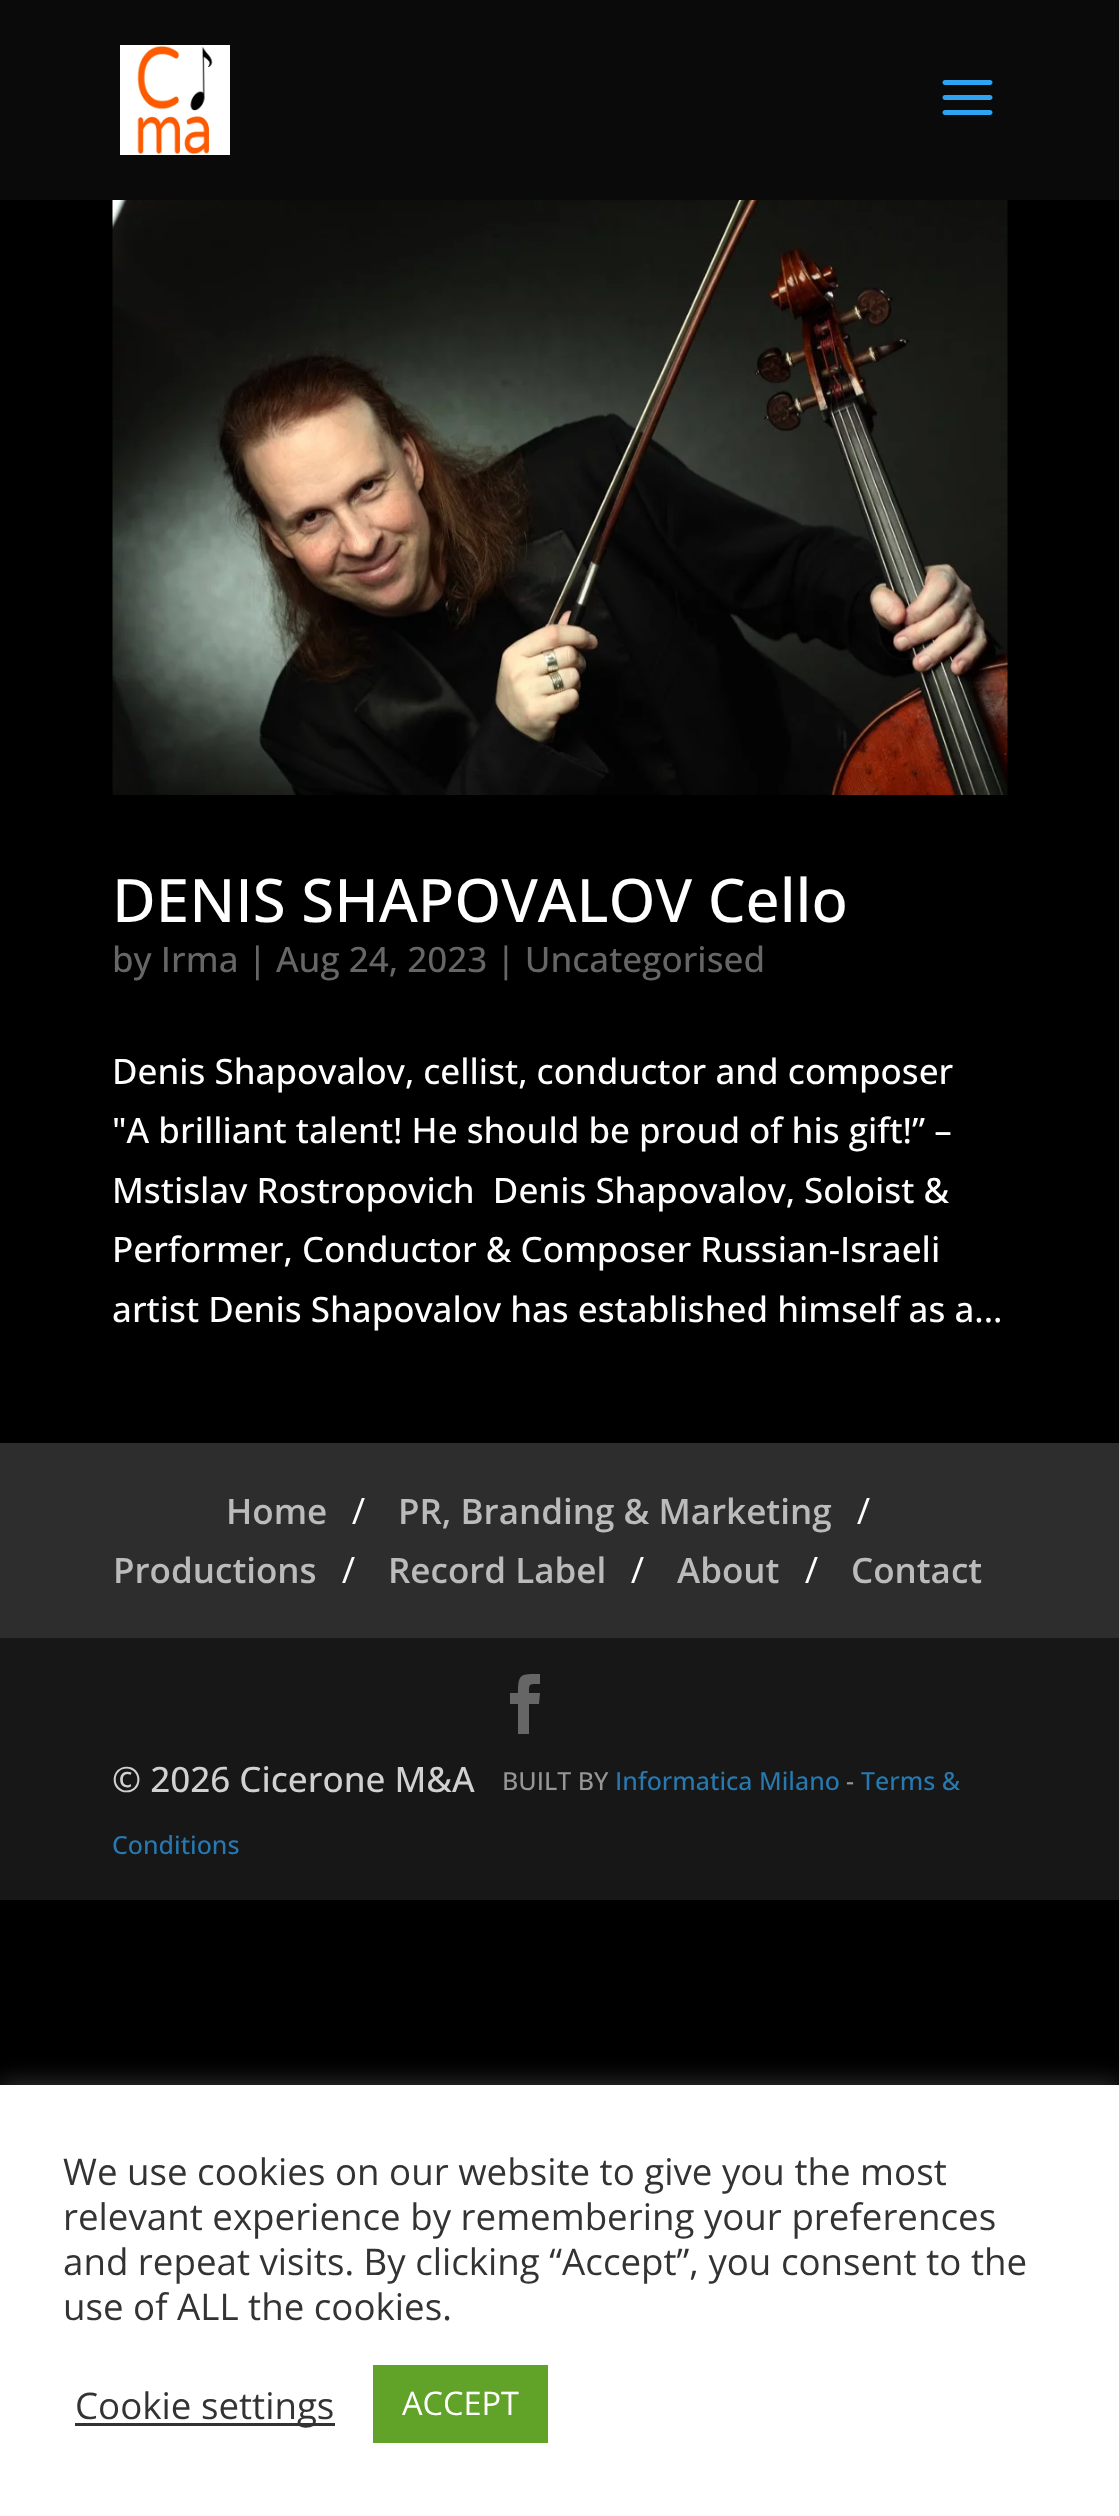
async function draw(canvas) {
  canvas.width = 1119;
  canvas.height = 2516;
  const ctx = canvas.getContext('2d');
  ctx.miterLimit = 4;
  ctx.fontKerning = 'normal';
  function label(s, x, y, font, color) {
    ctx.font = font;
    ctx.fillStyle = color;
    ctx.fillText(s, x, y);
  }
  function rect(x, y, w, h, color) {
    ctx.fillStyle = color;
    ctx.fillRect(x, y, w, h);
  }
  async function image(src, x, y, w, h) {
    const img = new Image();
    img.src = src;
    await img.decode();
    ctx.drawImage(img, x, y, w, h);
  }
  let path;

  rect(0, 0, 1119, 2516, '#000');
  rect(0, 0, 1119, 200, '#0a0a0a');
  await image('assets/img1.png', 120, 45, 110, 110);
  await image('assets/img2.png', 942, 80, 51, 35);
  await image('assets/img3.png', 112, 200, 896, 595);
  label('DENIS SHAPOVALOV Cello', 112, 922, '500 60px Open Sans', '#fff');
  label('by Irma | Aug 24, 2023 | Uncategorised', 112, 972, '500 35px Open Sans', '#666');
  label('Denis Shapovalov, cellist, conductor and composer', 112, 1084, '500 35px Open Sans', '#fff');
  label('"A brilliant talent! He should be proud of his gift!” –', 112, 1143, '500 35px Open Sans', '#fff');
  label('Mstislav Rostropovich  Denis Shapovalov, Soloist &', 112, 1203, '500 35px Open Sans', '#fff');
  label('Performer, Conductor & Composer Russian-Israeli', 112, 1262, '500 35px Open Sans', '#fff');
  label('artist Denis Shapovalov has established himself as a...', 112, 1322, '500 35px Open Sans', '#fff');
  rect(0, 1443, 1119, 195, '#2d2d2d');
  label('Home', 226, 1524, '600 35px Open Sans', '#bbb');
  label('/', 352, 1524, 'bold 35px Open Sans', '#fff');
  label('PR, Branding & Marketing', 398, 1524, '600 35px Open Sans', '#bbb');
  label('/', 857, 1524, 'bold 35px Open Sans', '#fff');
  label('Productions', 113, 1583, '600 35px Open Sans', '#bbb');
  label('/', 342, 1583, 'bold 35px Open Sans', '#fff');
  label('Record Label', 388, 1583, '600 35px Open Sans', '#bbb');
  label('/', 631, 1583, 'bold 35px Open Sans', '#fff');
  label('About', 677, 1583, '600 35px Open Sans', '#bbb');
  label('/', 805, 1583, 'bold 35px Open Sans', '#fff');
  label('Contact', 851, 1583, '600 35px Open Sans', '#bbb');
  rect(0, 1638, 1119, 262, '#171717');
  ctx.fillStyle = '#666';
  path = new Path2D('M518 1734H529V1704H539L540 1693H529C529 1683 529 1684 540 1684V1674C521 1674 518 1673 518 1693H510V1704H518Z');
  ctx.fill(path);
  label('© 2026 Cicerone M&A', 112, 1792, '500 35px Open Sans', '#d1d1d1');
  label('BUILT BY', 502, 1790, '500 25px Open Sans', '#969696');
  label('Informatica Milano', 615, 1790, '500 25px Open Sans', '#2779b0');
  label('-', 846, 1790, '500 25px Open Sans', '#969696');
  label('Terms &', 861, 1790, '500 25px Open Sans', '#2779b0');
  label('Conditions', 112, 1854, '500 25px Open Sans', '#2779b0');
  ctx.fillStyle = '#acabab4d';
  ctx.filter = 'blur(12.5px)';
  ctx.beginPath();
  ctx.rect(0, 2083, 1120, 432);
  ctx.fill();
  ctx.filter = 'none';
  rect(0, 2085, 1119, 431, '#fff');
  label('We use cookies on our website to give you the most', 63, 2185, '36.7px Open Sans', '#333');
  label('relevant experience by remembering your preferences', 63, 2230, '36.7px Open Sans', '#333');
  label('and repeat visits. By clicking “Accept”, you consent to the', 63, 2275, '36.7px Open Sans', '#333');
  label('use of ALL the cookies.', 63, 2320, '36.7px Open Sans', '#333');
  rect(75, 2423, 260, 3, '#333');
  label('Cookie settings', 75, 2419, '36.7px Open Sans', '#333');
  rect(373, 2365, 175, 78, '#61a229');
  label('ACCEPT', 402, 2415, '32.5px Open Sans', '#fff');
}

draw(document.querySelector('canvas'));
